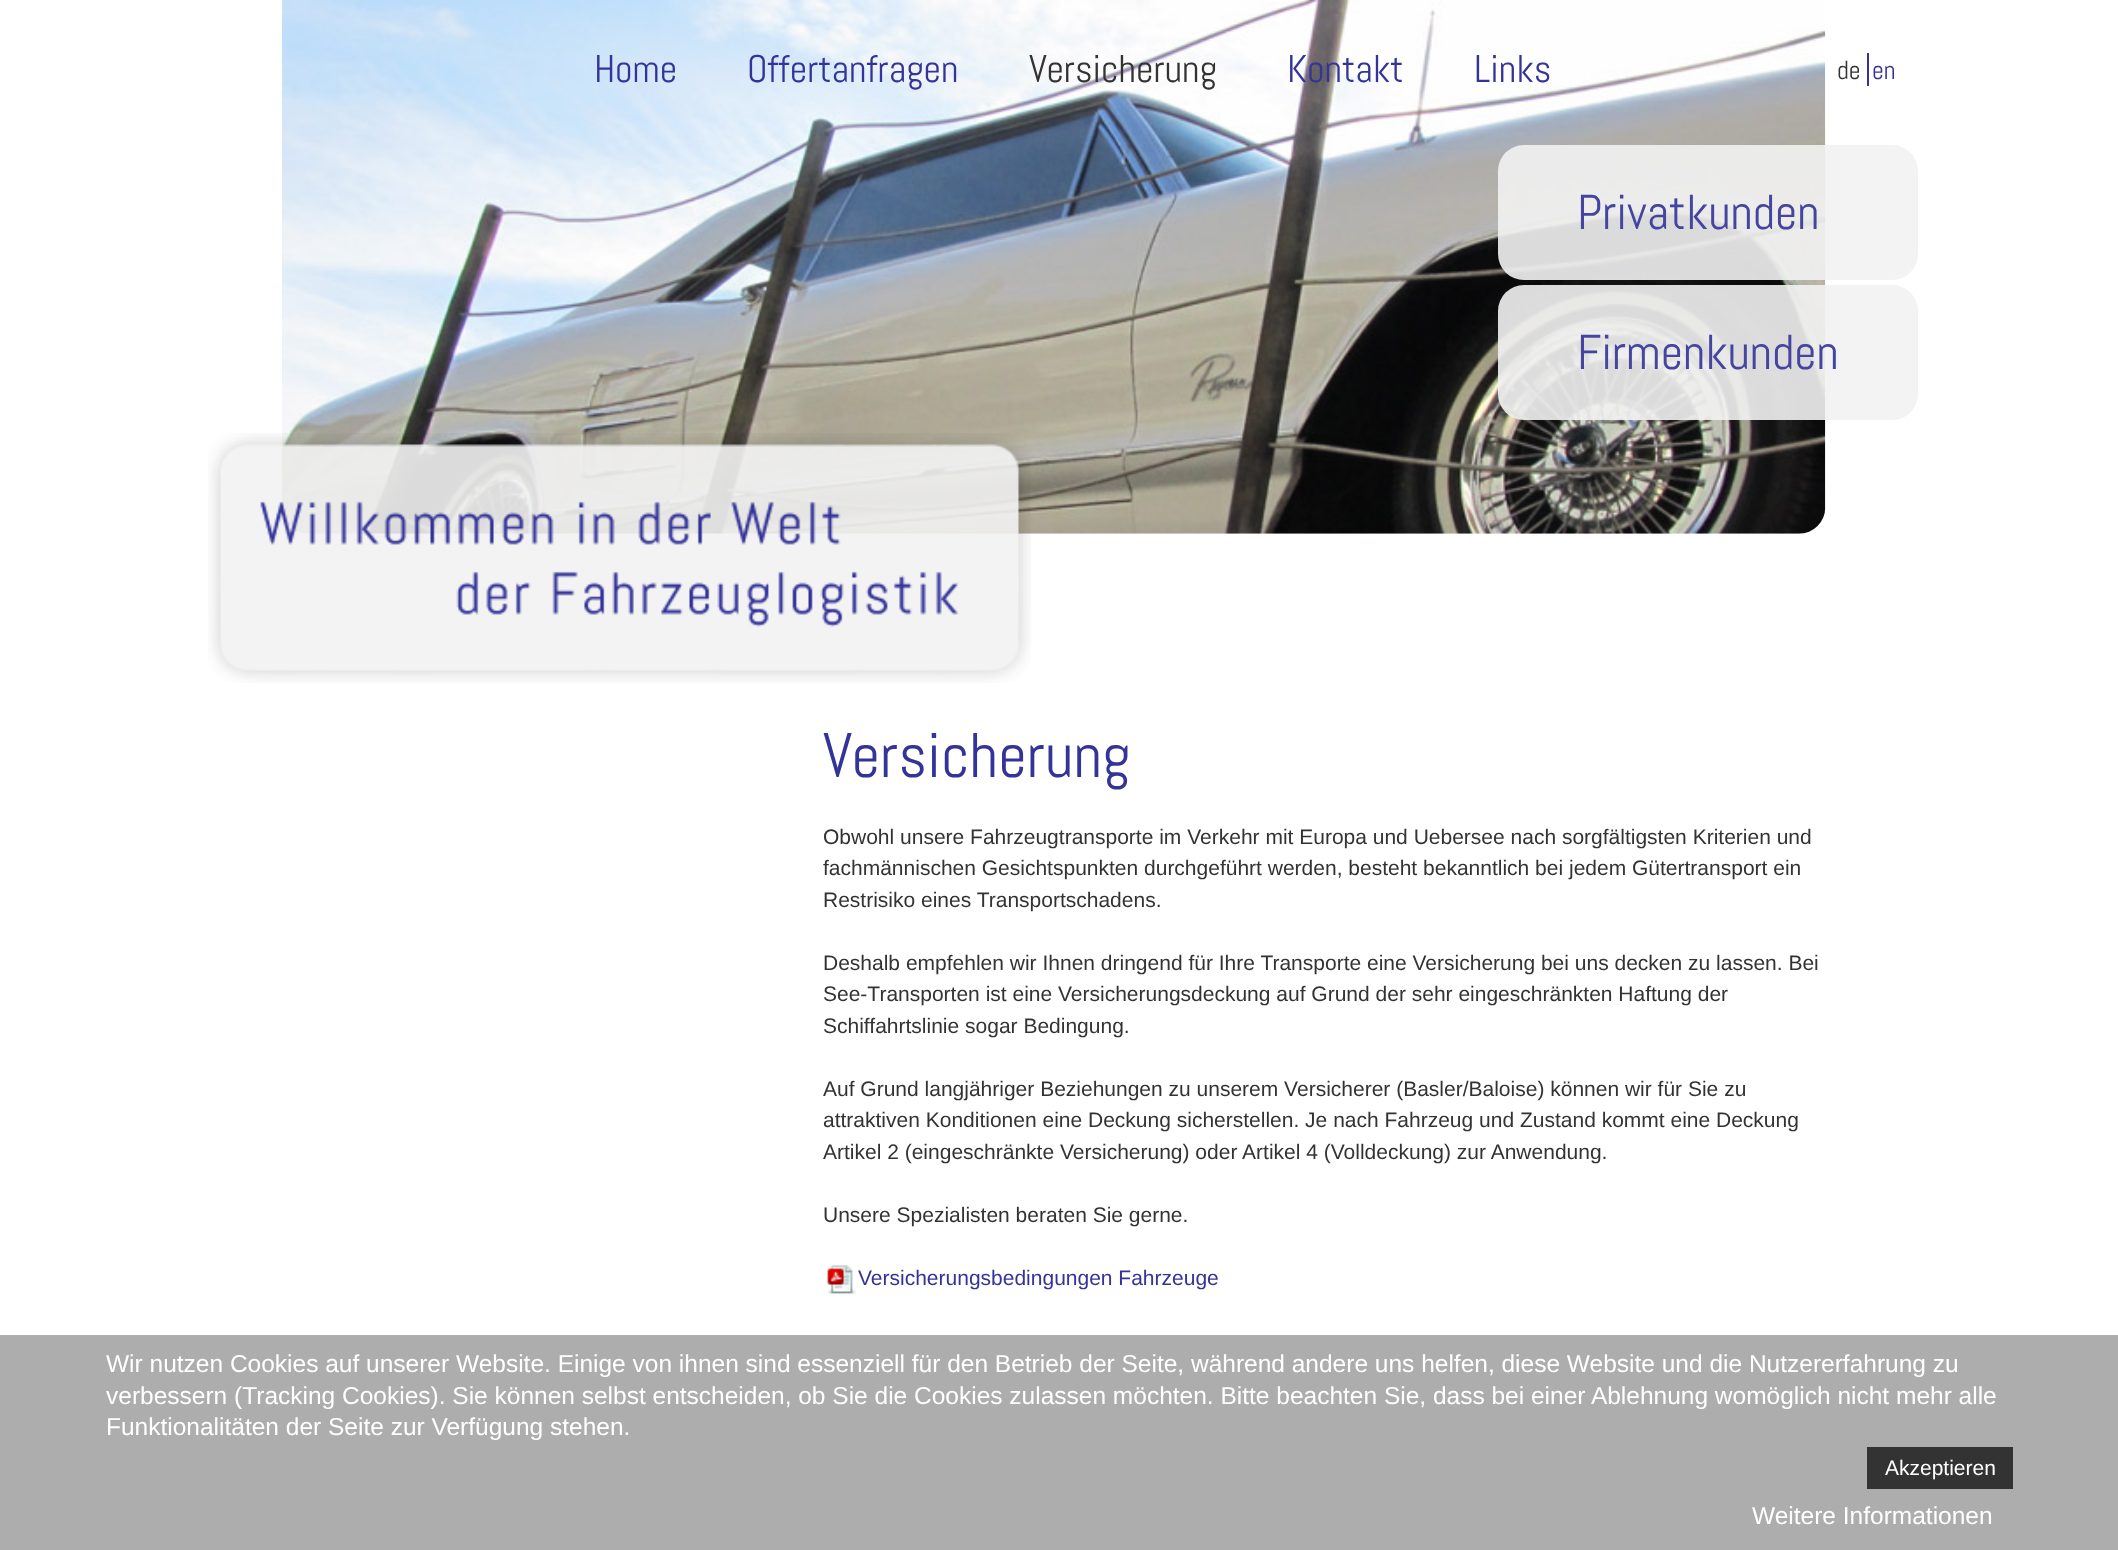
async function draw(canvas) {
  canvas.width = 2118;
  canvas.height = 1550;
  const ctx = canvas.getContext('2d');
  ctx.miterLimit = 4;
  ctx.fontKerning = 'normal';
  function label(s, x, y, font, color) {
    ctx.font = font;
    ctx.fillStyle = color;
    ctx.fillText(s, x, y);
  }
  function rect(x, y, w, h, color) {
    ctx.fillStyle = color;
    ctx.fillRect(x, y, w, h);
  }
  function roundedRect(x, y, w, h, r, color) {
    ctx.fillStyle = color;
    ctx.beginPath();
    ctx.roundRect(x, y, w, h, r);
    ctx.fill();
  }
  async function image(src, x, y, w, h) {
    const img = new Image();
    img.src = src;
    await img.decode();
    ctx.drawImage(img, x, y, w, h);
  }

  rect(0, 0, 2118, 1550, '#fff');
  await image('assets/img1.png', 281, 0, 1545, 534);
  label('Home', 594, 82, '38.5px Abel', '#339');
  label('Offertanfragen', 747, 82, '38.5px Abel', '#339');
  label('Versicherung', 1029, 82, '38.5px Abel', '#333');
  label('Kontakt', 1287, 82, '38.5px Abel', '#339');
  label('Links', 1474, 82, '38.5px Abel', '#339');
  label('de', 1837, 79, '26px Abel', '#333');
  rect(1867, 53, 2, 33, '#339');
  label('en', 1872, 79, '26px Abel', '#339');
  roundedRect(1498, 145, 420, 135, 26, '#f2f2f2e6');
  label('Privatkunden', 1577, 229, '49px Abel', '#4545a1');
  roundedRect(1498, 285, 420, 135, 26, '#f2f2f2e6');
  label('Firmenkunden', 1577, 369, '49px Abel', '#4545a1');
  await image('assets/img2.png', 208, 433, 823, 250);
  label('Versicherung', 823, 777, '63px Abel', '#339');
  label('Obwohl unsere Fahrzeugtransporte im Verkehr mit Europa und Uebersee nach sorgfältigsten Kriterien und', 823, 844, '21px Liberation Sans', '#333');
  label('fachmännischen Gesichtspunkten durchgeführt werden, besteht bekanntlich bei jedem Gütertransport ein', 823, 875, '21px Liberation Sans', '#333');
  label('Restrisiko eines Transportschadens.', 823, 907, '21px Liberation Sans', '#333');
  label('Deshalb empfehlen wir Ihnen dringend für Ihre Transporte eine Versicherung bei uns decken zu lassen. Bei', 823, 970, '21px Liberation Sans', '#333');
  label('See-Transporten ist eine Versicherungsdeckung auf Grund der sehr eingeschränkten Haftung der', 823, 1001, '21px Liberation Sans', '#333');
  label('Schiffahrtslinie sogar Bedingung.', 823, 1033, '21px Liberation Sans', '#333');
  label('Auf Grund langjähriger Beziehungen zu unserem Versicherer (Basler/Baloise) können wir für Sie zu', 823, 1096, '21px Liberation Sans', '#333');
  label('attraktiven Konditionen eine Deckung sicherstellen. Je nach Fahrzeug und Zustand kommt eine Deckung', 823, 1127, '21px Liberation Sans', '#333');
  label('Artikel 2 (eingeschränkte Versicherung) oder Artikel 4 (Volldeckung) zur Anwendung.', 823, 1159, '21px Liberation Sans', '#333');
  label('Unsere Spezialisten beraten Sie gerne.', 823, 1222, '21px Liberation Sans', '#333');
  await image('assets/img3.png', 827, 1265, 29, 29);
  label('Versicherungsbedingungen Fahrzeuge', 858, 1285, '21px Liberation Sans', '#339');
  rect(0, 1335, 2118, 215, '#adadad');
  label('Wir nutzen Cookies auf unserer Website. Einige von ihnen sind essenziell für den Betrieb der Seite, während andere uns helfen, diese Website und die Nutzererfahrung zu', 106, 1372, '24.5px Liberation Sans', '#fff');
  label('verbessern (Tracking Cookies). Sie können selbst entscheiden, ob Sie die Cookies zulassen möchten. Bitte beachten Sie, dass bei einer Ablehnung womöglich nicht mehr alle', 106, 1404, '24.5px Liberation Sans', '#fff');
  label('Funktionalitäten der Seite zur Verfügung stehen.', 106, 1435, '24.5px Liberation Sans', '#fff');
  rect(1867, 1447, 146, 42, '#333');
  label('Akzeptieren', 1885, 1475, '21px Liberation Sans', '#fff');
  label('Weitere Informationen', 1752, 1524, '24.5px Liberation Sans', '#fff');
}

draw(document.querySelector('canvas'));
